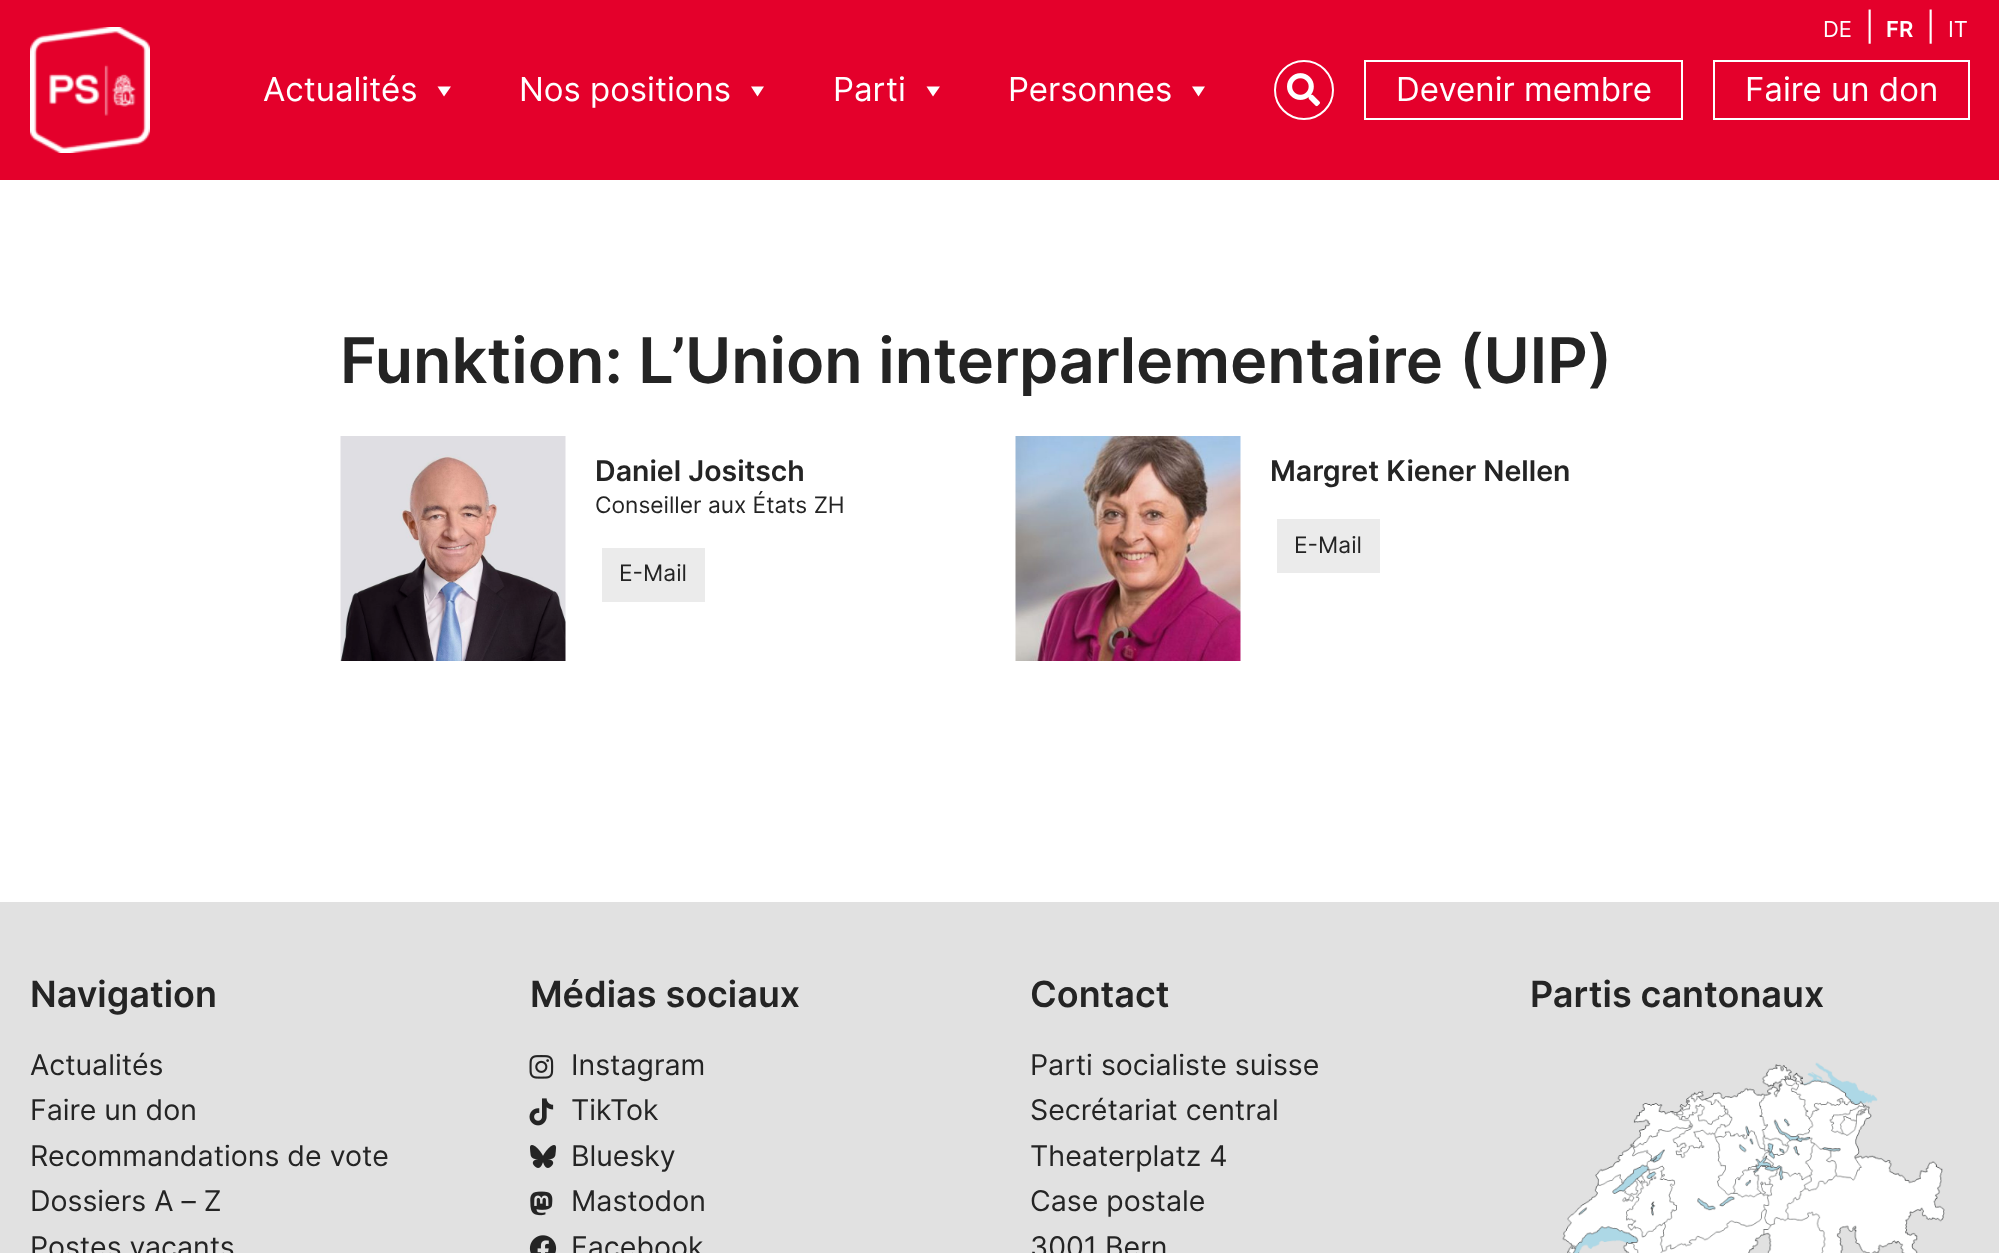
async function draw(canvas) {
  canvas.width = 1999;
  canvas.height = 1253;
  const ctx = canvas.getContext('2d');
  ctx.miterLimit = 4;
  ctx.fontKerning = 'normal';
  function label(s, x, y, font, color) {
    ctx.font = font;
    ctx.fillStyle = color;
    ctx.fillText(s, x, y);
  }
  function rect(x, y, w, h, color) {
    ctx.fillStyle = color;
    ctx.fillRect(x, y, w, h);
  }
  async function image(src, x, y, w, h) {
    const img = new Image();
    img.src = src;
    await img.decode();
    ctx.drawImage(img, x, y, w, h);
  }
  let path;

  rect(0, 0, 1999, 1253, '#fff');
  rect(0, 0, 1999, 180, '#e4002b');
  label('DE', 1823, 37, '22px Inter', '#fff');
  label('|', 1865, 37, '28.5px Inter', '#fff');
  label('FR', 1886, 37, '600 22px Inter', '#fff');
  label('|', 1926, 37, '28.5px Inter', '#fff');
  label('IT', 1948, 37, '22px Inter', '#fff');
  await image('assets/img1.png', 30, 27, 120, 126);
  label('Actualités', 263, 101, '33px Inter', '#fff');
  path = new Path2D('M451 86.5L444 96.5L437.5 86.5Z');
  ctx.fill(path);
  label('Nos positions', 519, 101, '33px Inter', '#fff');
  path = new Path2D('M764 86.5L757.5 96.5L751 86.5Z');
  ctx.fill(path);
  label('Parti', 833, 101, '33px Inter', '#fff');
  path = new Path2D('M940 86.5L933 96.5L926.5 86.5Z');
  ctx.fill(path);
  label('Personnes', 1008, 101, '33px Inter', '#fff');
  path = new Path2D('M1205 86.5L1198.5 96.5L1192 86.5Z');
  ctx.fill(path);
  ctx.beginPath();
  ctx.arc(1304, 90, 29, 0, 2 * Math.PI);
  ctx.strokeStyle = '#fff';
  ctx.lineWidth = 2;
  ctx.stroke();
  await image('assets/img2.png', 1287, 73, 33, 34);
  ctx.strokeRect(1365, 61, 317, 58);
  label('Devenir membre', 1396, 101, '33px Inter', '#fff');
  ctx.strokeRect(1714, 61, 255, 58);
  label('Faire un don', 1745, 101, '33px Inter', '#fff');
  label('Funktion: L’Union interparlementaire (UIP)', 340, 383, '600 63px Inter', '#242424');
  await image('assets/img3.png', 340, 436, 226, 225);
  label('Daniel Jositsch', 595, 481, '600 28.5px Inter', '#242424');
  label('Conseiller aux États ZH', 595, 513, '22.75px Inter', '#242424');
  rect(602, 548, 103, 54, '#ebebeb');
  label('E-Mail', 619, 581, '22.75px Inter', '#242424');
  await image('assets/img4.png', 1015, 436, 226, 225);
  label('Margret Kiener Nellen', 1270, 481, '600 28.5px Inter', '#242424');
  rect(1277, 519, 103, 54, '#ebebeb');
  label('E-Mail', 1294, 553, '22.75px Inter', '#242424');
  rect(0, 902, 1999, 351, '#e1e1e1');
  label('Navigation', 30, 1007, '600 36px Inter', '#242424');
  label('Actualités', 30, 1075, '28.5px Inter', '#242424');
  label('Faire un don', 30, 1120, '28.5px Inter', '#242424');
  label('Recommandations de vote', 30, 1166, '28.5px Inter', '#242424');
  label('Dossiers A – Z', 30, 1211, '28.5px Inter', '#242424');
  label('Postes vacants', 30, 1257, '28.5px Inter', '#242424');
  label('Médias sociaux', 530, 1007, '600 36px Inter', '#242424');
  await image('assets/img5.png', 529, 1055, 25, 24);
  label('Instagram', 571, 1075, '28.5px Inter', '#242424');
  await image('assets/img6.png', 529, 1098, 25, 28);
  label('TikTok', 571, 1120, '28.5px Inter', '#242424');
  await image('assets/img7.png', 530, 1145, 27, 23);
  label('Bluesky', 571, 1166, '28.5px Inter', '#242424');
  await image('assets/img8.png', 530, 1191, 23, 25);
  label('Mastodon', 571, 1211, '28.5px Inter', '#242424');
  await image('assets/img9.png', 529, 1235, 28, 18);
  label('Facebook', 571, 1257, '28.5px Inter', '#242424');
  label('Contact', 1030, 1007, '600 36px Inter', '#242424');
  label('Parti socialiste suisse', 1030, 1075, '28.5px Inter', '#242424');
  label('Secrétariat central', 1030, 1120, '28.5px Inter', '#242424');
  label('Theaterplatz 4', 1030, 1166, '28.5px Inter', '#242424');
  label('Case postale', 1030, 1211, '28.5px Inter', '#242424');
  label('3001 Bern', 1030, 1257, '28.5px Inter', '#242424');
  label('Partis cantonaux', 1530, 1007, '600 36px Inter', '#242424');
  await image('assets/img10.png', 1562, 1062, 383, 191);
}

draw(document.querySelector('canvas'));
